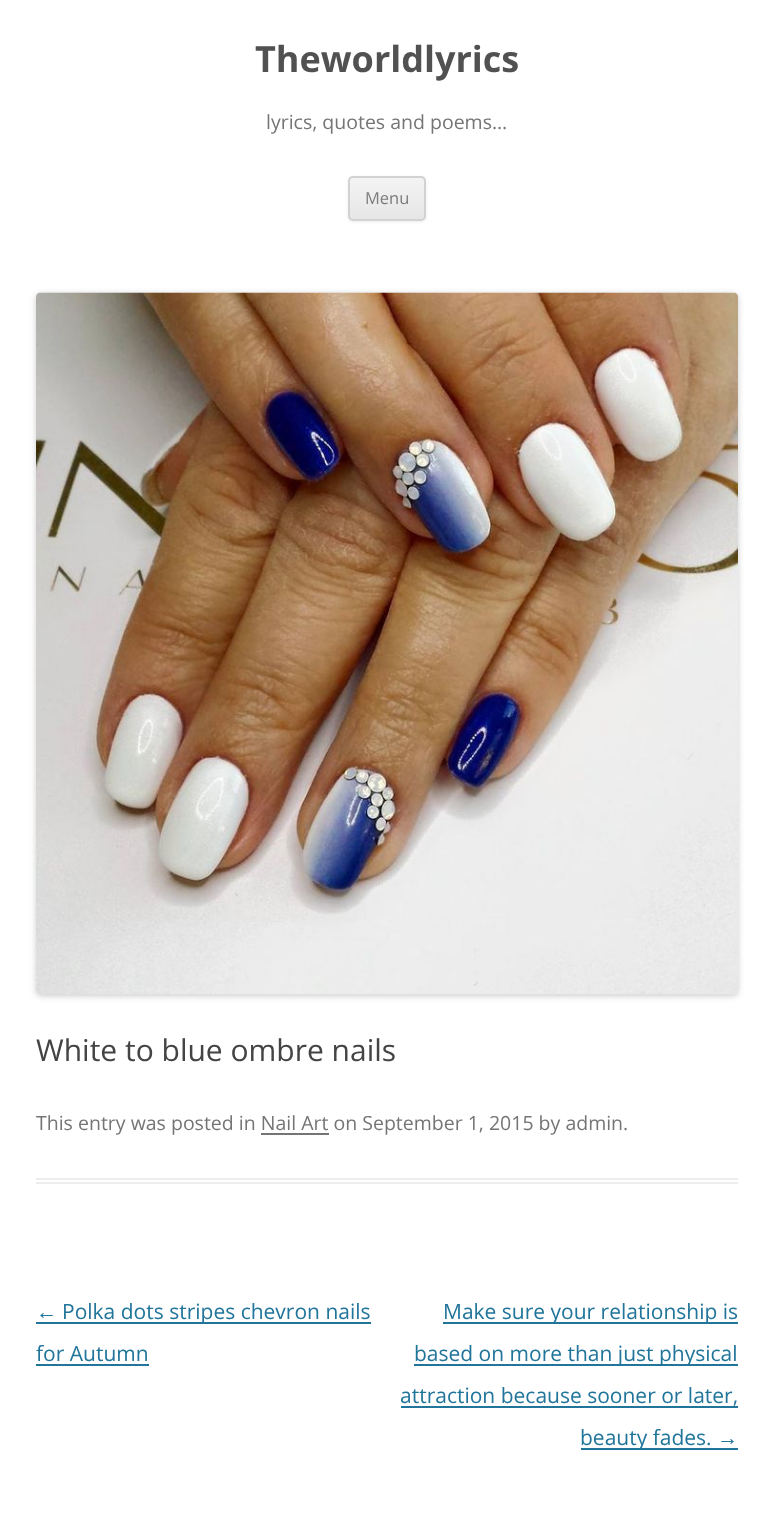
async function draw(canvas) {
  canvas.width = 774;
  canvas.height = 1527;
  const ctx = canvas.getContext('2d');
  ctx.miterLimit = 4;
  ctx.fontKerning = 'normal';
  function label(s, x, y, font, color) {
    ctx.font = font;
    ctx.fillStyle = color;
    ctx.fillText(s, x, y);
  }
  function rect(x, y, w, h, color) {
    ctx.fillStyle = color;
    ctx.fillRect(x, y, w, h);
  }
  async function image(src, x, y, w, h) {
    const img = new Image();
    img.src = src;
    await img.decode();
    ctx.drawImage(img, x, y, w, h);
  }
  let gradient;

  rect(0, 0, 774, 1527, '#fff');
  label('Theworldlyrics', 255, 72, 'bold 36px Open Sans', '#515151');
  label('lyrics, quotes and poems…', 266, 129, '19.5px Open Sans', '#757575');
  ctx.fillStyle = '#4040401a';
  ctx.filter = 'blur(1.5px)';
  ctx.beginPath();
  ctx.roundRect(348, 177, 78, 45, 5);
  ctx.fill();
  ctx.filter = 'none';
  ctx.save();
  ctx.beginPath();
  ctx.roundRect(348, 176, 78, 45, 5);
  ctx.clip();
  gradient = ctx.createLinearGradient(387, 177, 387, 219);
  gradient.addColorStop(0, '#f4f4f4');
  gradient.addColorStop(1, '#e6e6e6');
  ctx.fillStyle = gradient;
  ctx.fillRect(348, 177, 78, 42);
  ctx.restore();
  ctx.beginPath();
  ctx.roundRect(349, 177, 76, 43, 4);
  ctx.strokeStyle = '#d2d2d2';
  ctx.lineWidth = 2;
  ctx.stroke();
  label('Menu', 365, 204, '16.5px Open Sans', '#7c7c7c');
  rect(36, 1178, 702, 2, '#ededed');
  rect(36, 1182, 702, 2, '#ededed');
  ctx.fillStyle = '#00000033';
  ctx.filter = 'blur(3px)';
  ctx.beginPath();
  ctx.roundRect(36, 294, 702, 702, 5);
  ctx.fill();
  ctx.filter = 'none';
  await image('assets/img1.png', 36, 292, 702, 703);
  label('White to blue ombre nails', 36, 1061, '30px Open Sans', '#444');
  label('This entry was posted in Nail Art on September 1, 2015 by admin.', 36, 1130, '19.5px Open Sans', '#757575');
  rect(261, 1133, 68, 2, '#757575');
  label('←', 36, 1319, '21px Liberation Sans', '#21759b');
  rect(36, 1322, 335, 2, '#21759b');
  label('Polka dots stripes chevron nails', 62, 1319, '21px Open Sans', '#21759b');
  label('for Autumn', 36, 1361, '21px Open Sans', '#21759b');
  rect(36, 1364, 113, 2, '#21759b');
  rect(443, 1322, 295, 2, '#21759b');
  label('Make sure your relationship is', 443, 1319, '21px Open Sans', '#21759b');
  rect(414, 1364, 324, 2, '#21759b');
  label('based on more than just physical', 414, 1361, '21px Open Sans', '#21759b');
  label('attraction because sooner or later,', 400, 1403, '21px Open Sans', '#21759b');
  rect(401, 1406, 337, 2, '#21759b');
  rect(581, 1448, 157, 2, '#21759b');
  label('beauty fades.', 580, 1445, '21px Open Sans', '#21759b');
  label('→', 717, 1445, '21px Liberation Sans', '#21759b');
}

draw(document.querySelector('canvas'));
